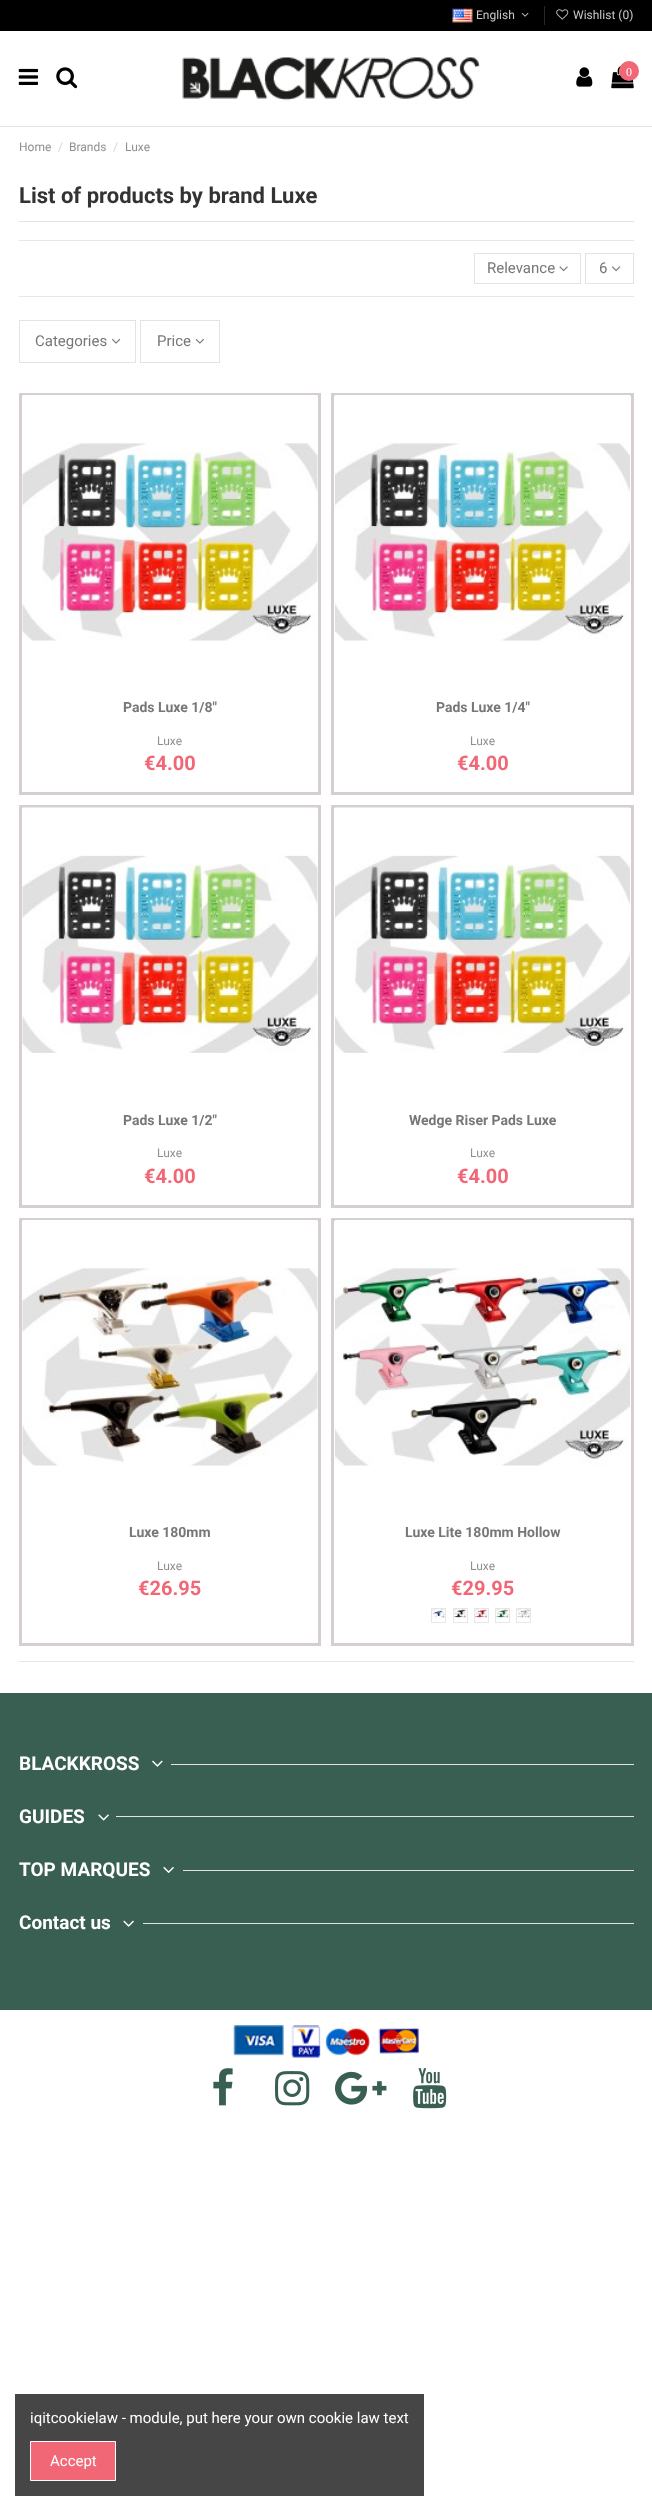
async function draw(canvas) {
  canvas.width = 652;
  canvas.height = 2511;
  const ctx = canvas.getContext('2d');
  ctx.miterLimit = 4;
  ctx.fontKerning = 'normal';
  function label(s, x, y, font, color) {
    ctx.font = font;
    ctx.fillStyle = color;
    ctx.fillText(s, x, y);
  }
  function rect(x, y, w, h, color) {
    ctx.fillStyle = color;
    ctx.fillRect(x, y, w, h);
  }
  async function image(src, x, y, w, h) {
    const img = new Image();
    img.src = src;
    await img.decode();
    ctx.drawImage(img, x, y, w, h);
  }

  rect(0, 0, 652, 2511, '#fff');
  rect(0, 0, 652, 31, '#000');
  await image('assets/img1.png', 452, 8, 21, 15);
  label('English', 476, 19, '12px Roboto', '#c9c9c9');
  await image('assets/img2.png', 521, 12, 8, 5);
  rect(544, 6, 1, 19, '#282828');
  await image('assets/img3.png', 556, 9, 13, 11);
  label('Wishlist (0)', 573, 19, '12px Roboto', '#c9c9c9');
  rect(0, 126, 652, 1, '#e3e3e3');
  await image('assets/img4.png', 18, 68, 21, 17);
  await image('assets/img5.png', 56, 67, 22, 22);
  await image('assets/img6.png', 182, 57, 298, 44);
  await image('assets/img7.png', 576, 67, 17, 20);
  await image('assets/img8.png', 611, 66, 23, 23);
  ctx.fillStyle = '#f16775';
  ctx.beginPath();
  ctx.arc(629, 71, 10, 0, 2 * Math.PI);
  ctx.fill();
  label('0', 626, 76, '12px Liberation Serif', '#fff');
  label('Home', 19, 151, '12px Roboto', '#8f8f8f');
  label('/', 58, 151, '12px Roboto', '#d2d2d2');
  label('Brands', 69, 151, '12px Roboto', '#8f8f8f');
  label('/', 113, 151, '12px Roboto', '#d2d2d2');
  label('Luxe', 125, 151, '12px Roboto', '#8f8f8f');
  rect(19, 221, 615, 1, '#e3e3e3');
  label('List of products by brand Luxe', 19, 203, 'bold 22px Roboto', '#333');
  rect(19, 240, 615, 1, '#e7e7e7');
  rect(19, 296, 615, 1, '#e7e7e7');
  ctx.strokeStyle = '#e3e3e3';
  ctx.strokeRect(474.5, 253.5, 106, 30);
  label('Relevance', 487, 273, '15px Roboto', '#777');
  await image('assets/img9.png', 559, 266, 9, 6);
  ctx.strokeRect(585.5, 253.5, 48, 30);
  label('6', 599, 273, '15px Roboto', '#777');
  await image('assets/img10.png', 612, 266, 9, 6);
  ctx.strokeRect(19.5, 320.5, 116, 42);
  label('Categories', 35, 346, '15px Roboto', '#777');
  await image('assets/img11.png', 112, 338, 9, 6);
  ctx.strokeRect(140.5, 320.5, 79, 42);
  label('Price', 157, 346, '15px Roboto', '#777');
  await image('assets/img12.png', 195, 338, 9, 6);
  ctx.strokeStyle = '#d5cfcf';
  ctx.lineWidth = 3;
  ctx.strokeRect(20.5, 394.5, 299, 399);
  await image('assets/img13.png', 22, 395, 296, 246);
  label('Pads Luxe 1/8"', 123, 712, 'bold 14px Roboto', '#777');
  label('Luxe', 157, 745, '12px Roboto', '#8f8f8f');
  label('€4.00', 144, 770, 'bold 20px Roboto', '#f16775');
  ctx.strokeRect(332.5, 394.5, 300, 399);
  await image('assets/img14.png', 335, 395, 295, 246);
  label('Pads Luxe 1/4"', 436, 712, 'bold 14px Roboto', '#777');
  label('Luxe', 470, 745, '12px Roboto', '#8f8f8f');
  label('€4.00', 457, 770, 'bold 20px Roboto', '#f16775');
  ctx.strokeRect(20.5, 806.5, 299, 400);
  await image('assets/img15.png', 22, 807, 296, 246);
  label('Pads Luxe 1/2"', 123, 1125, 'bold 14px Roboto', '#777');
  label('Luxe', 157, 1157, '12px Roboto', '#8f8f8f');
  label('€4.00', 144, 1183, 'bold 20px Roboto', '#f16775');
  ctx.strokeRect(332.5, 806.5, 300, 400);
  await image('assets/img16.png', 335, 807, 295, 246);
  label('Wedge Riser Pads Luxe', 409, 1125, 'bold 14px Roboto', '#777');
  label('Luxe', 470, 1157, '12px Roboto', '#8f8f8f');
  label('€4.00', 457, 1183, 'bold 20px Roboto', '#f16775');
  ctx.strokeRect(20.5, 1219.5, 299, 425);
  await image('assets/img17.png', 22, 1220, 296, 246);
  label('Luxe 180mm', 129, 1537, 'bold 14px Roboto', '#777');
  label('Luxe', 157, 1570, '12px Roboto', '#8f8f8f');
  label('€26.95', 138, 1595, 'bold 20px Roboto', '#f16775');
  ctx.strokeRect(332.5, 1219.5, 300, 425);
  await image('assets/img18.png', 335, 1220, 295, 246);
  label('Luxe Lite 180mm Hollow', 405, 1537, 'bold 14px Roboto', '#777');
  label('Luxe', 470, 1570, '12px Roboto', '#8f8f8f');
  label('€29.95', 451, 1595, 'bold 20px Roboto', '#f16775');
  await image('assets/img19.png', 432, 1608, 13, 10);
  ctx.strokeStyle = '#a1a1a140';
  ctx.lineWidth = 1;
  ctx.strokeRect(431.5, 1608.5, 14, 14);
  await image('assets/img20.png', 453, 1608, 14, 10);
  ctx.strokeRect(453.5, 1608.5, 14, 14);
  await image('assets/img21.png', 475, 1608, 13, 10);
  ctx.strokeRect(474.5, 1608.5, 14, 14);
  await image('assets/img22.png', 496, 1608, 13, 10);
  ctx.strokeRect(495.5, 1608.5, 14, 14);
  await image('assets/img23.png', 517, 1608, 13, 10);
  ctx.strokeRect(516.5, 1608.5, 14, 14);
  rect(19, 1661, 615, 1, '#e7e7e7');
  rect(0, 1693, 652, 317, '#395f52');
  label('BLACKKROSS', 19, 1770, 'bold 19px Roboto', '#fff');
  await image('assets/img24.png', 152, 1760, 11, 7);
  rect(171, 1764, 463, 1, '#e3e3e3');
  label('GUIDES', 19, 1823, 'bold 19px Roboto', '#fff');
  await image('assets/img25.png', 98, 1814, 11, 7);
  rect(116, 1816, 518, 1, '#e3e3e3');
  label('TOP MARQUES', 19, 1876, 'bold 19px Roboto', '#fff');
  await image('assets/img26.png', 163, 1866, 11, 7);
  rect(183, 1870, 451, 1, '#e3e3e3');
  label('Contact us', 19, 1929, 'bold 19px Roboto', '#fff');
  await image('assets/img27.png', 123, 1920, 11, 7);
  rect(143, 1923, 491, 1, '#e3e3e3');
  await image('assets/img28.png', 233, 2025, 186, 33);
  await image('assets/img29.png', 213, 2068, 20, 38);
  await image('assets/img30.png', 275, 2071, 35, 35);
  await image('assets/img31.png', 335, 2071, 52, 34);
  await image('assets/img32.png', 413, 2068, 34, 41);
  rect(15, 2394, 409, 102, '#464646');
  label('iqitcookielaw - module, put here your own cookie law text', 30, 2423, '15px Roboto', '#fff');
  ctx.fillStyle = '#f16775';
  ctx.beginPath();
  ctx.rect(30.5, 2441.5, 85, 39);
  ctx.fill();
  ctx.strokeStyle = '#fff';
  ctx.stroke();
  label('Accept', 50, 2466, '15px Roboto', '#fff');
}

draw(document.querySelector('canvas'));
